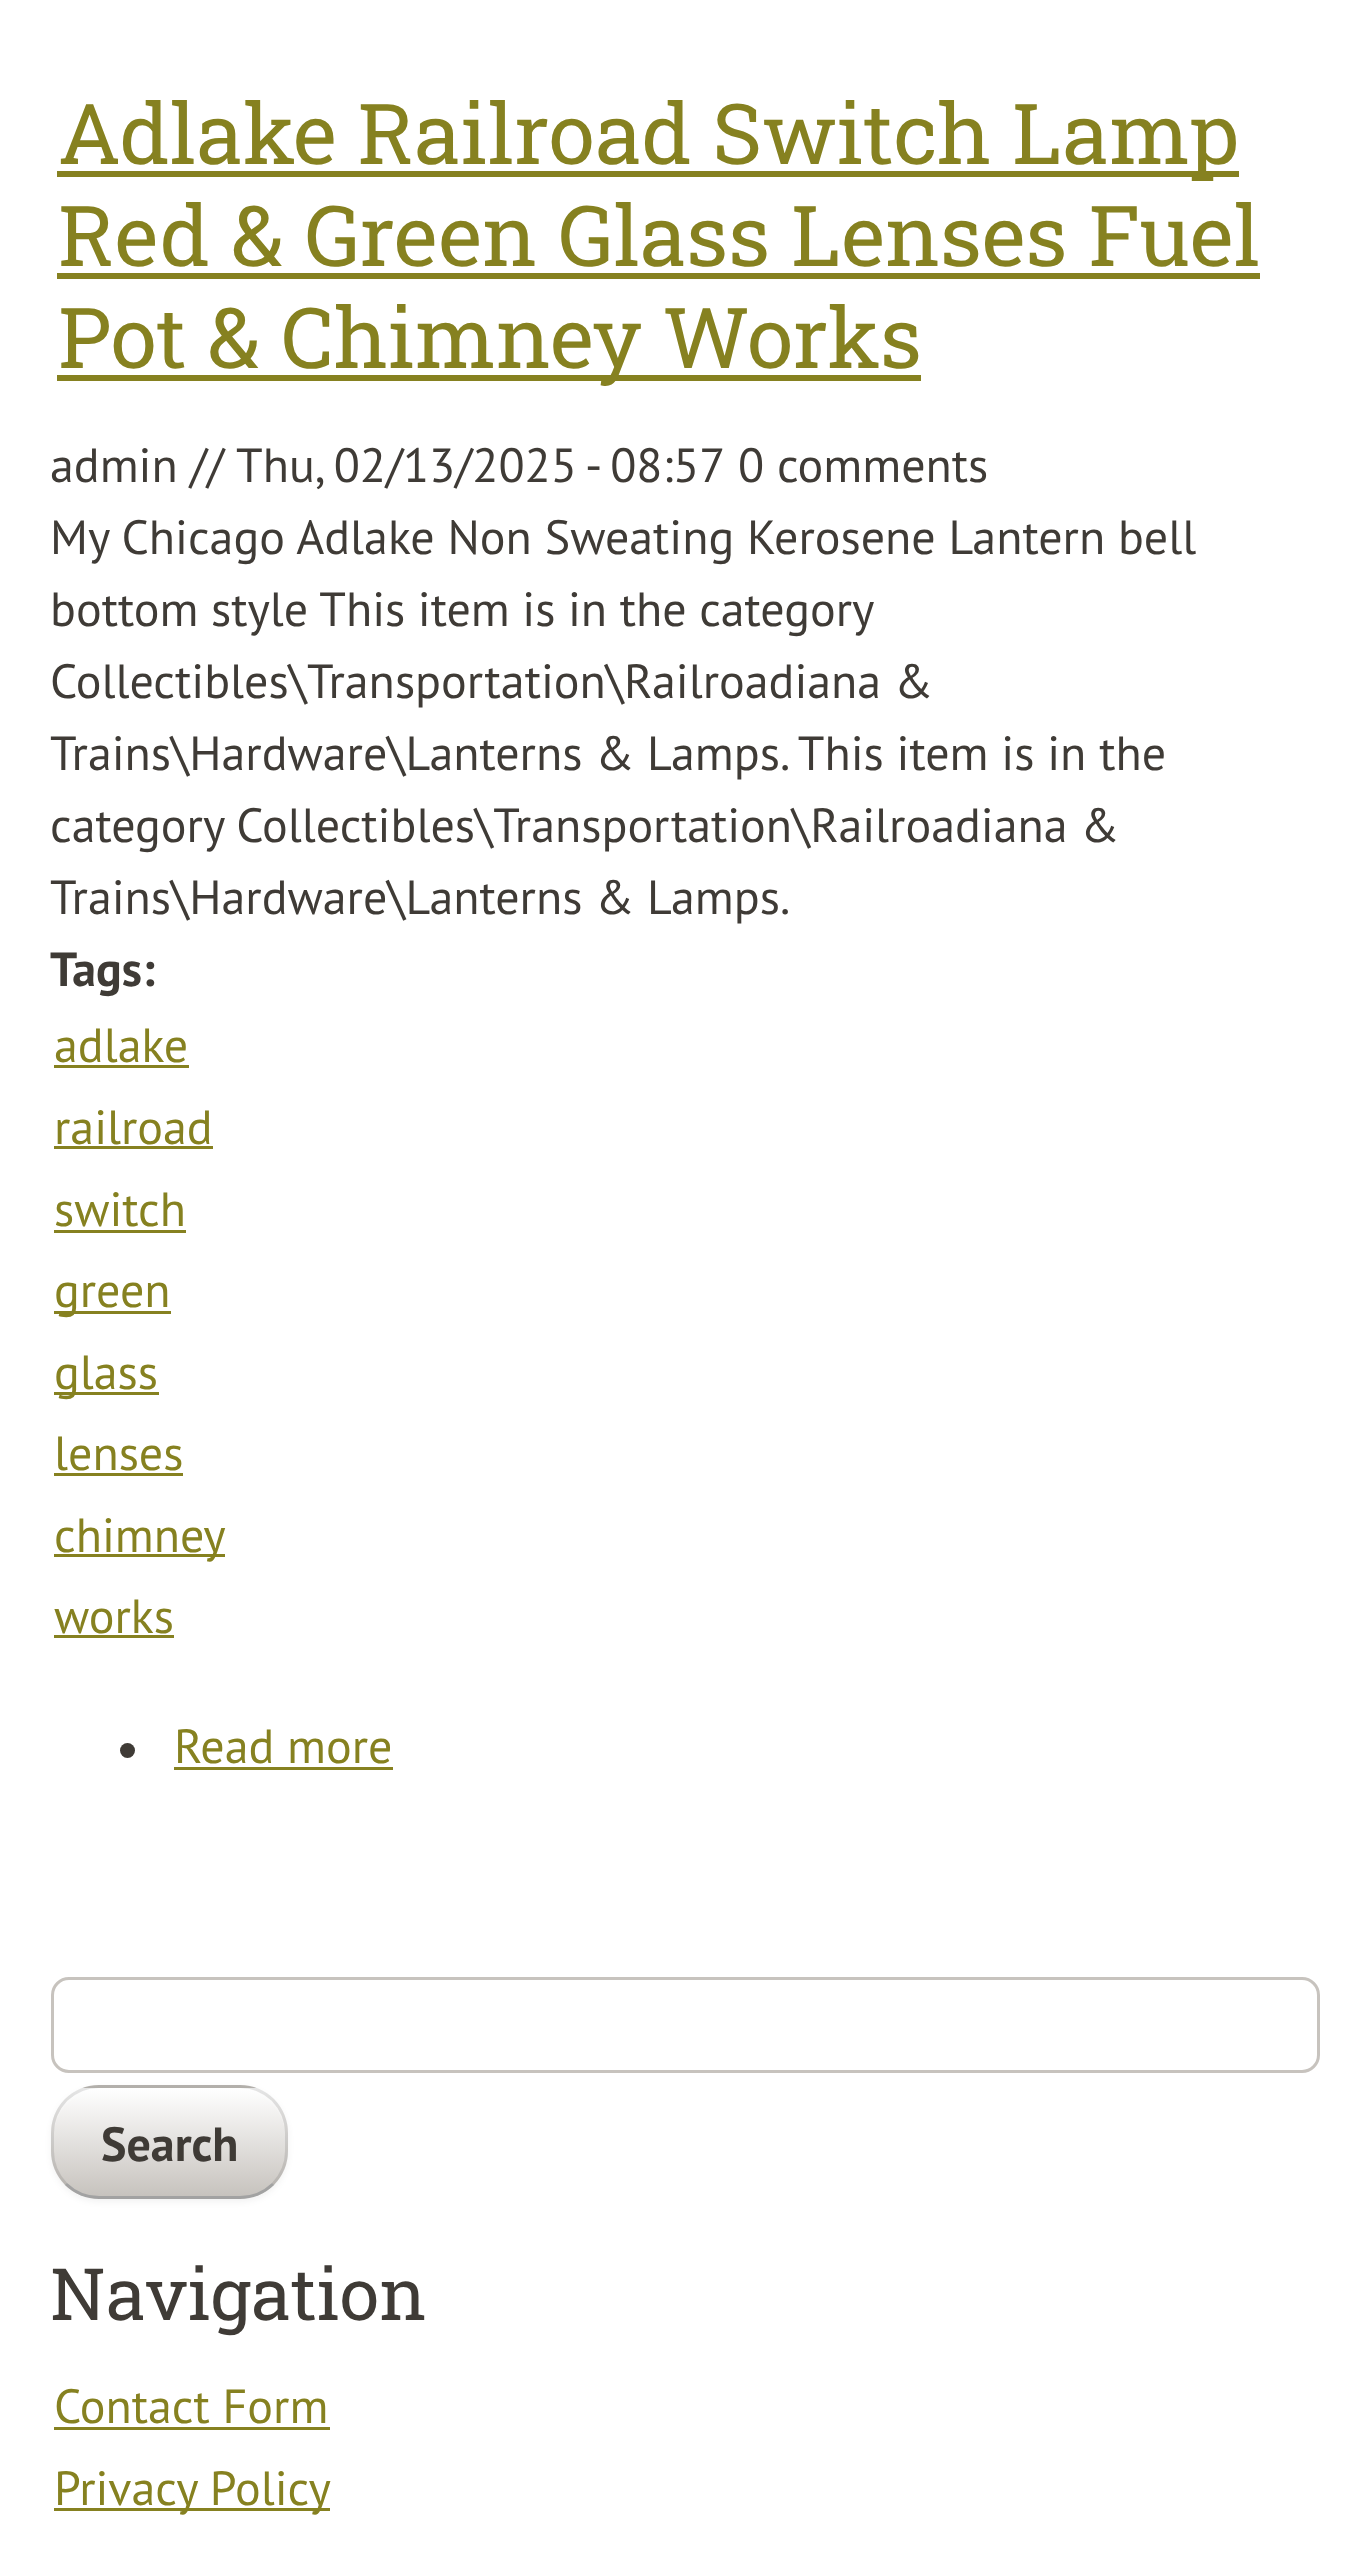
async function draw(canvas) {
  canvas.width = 1369;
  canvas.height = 2555;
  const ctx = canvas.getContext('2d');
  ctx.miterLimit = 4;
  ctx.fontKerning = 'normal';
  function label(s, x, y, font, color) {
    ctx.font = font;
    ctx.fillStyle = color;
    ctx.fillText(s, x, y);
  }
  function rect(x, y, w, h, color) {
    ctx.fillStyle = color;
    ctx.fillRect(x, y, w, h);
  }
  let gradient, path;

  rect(0, 0, 1369, 2555, '#fff');
  rect(57, 171, 1182, 6, '#868120');
  label('Adlake Railroad Switch Lamp', 58, 164, '84px Roboto Slab', '#868120');
  label('Red & Green Glass Lenses Fuel', 58, 266, '84px Roboto Slab', '#868120');
  rect(57, 273, 1203, 6, '#868120');
  rect(57, 375, 864, 6, '#868120');
  label('Pot & Chimney Works', 58, 368, '84px Roboto Slab', '#868120');
  label('admin', 50, 482, '48px PT Sans', '#3f3b36');
  label('//', 190, 482, '48px PT Sans', '#3f3b36');
  ctx.wordSpacing = '-1px';
  label('Thu, 02/13/2025 - 08:57', 236, 482, '48px PT Sans', '#3f3b36');
  ctx.wordSpacing = '0px';
  label('0 comments', 738, 482, '48px PT Sans', '#3f3b36');
  label('My Chicago Adlake Non Sweating Kerosene Lantern bell', 50, 554, '48px PT Sans', '#3f3b36');
  ctx.wordSpacing = '-0.25px';
  label('bottom style This item is in the category', 50, 626, '48px PT Sans', '#3f3b36');
  ctx.wordSpacing = '0px';
  label('Collectibles\\Transportation\\Railroadiana &', 50, 698, '48px PT Sans', '#3f3b36');
  label('Trains\\Hardware\\Lanterns & Lamps. This item is in the', 50, 770, '48px PT Sans', '#3f3b36');
  label('category Collectibles\\Transportation\\Railroadiana &', 50, 842, '48px PT Sans', '#3f3b36');
  label('Trains\\Hardware\\Lanterns & Lamps.', 50, 914, '48px PT Sans', '#3f3b36');
  label('Tags:', 50, 986, 'bold 48px PT Sans', '#3f3b36');
  label('adlake', 54, 1062, '48px PT Sans', '#868120');
  rect(54, 1065, 135, 3, '#868120');
  label('railroad', 54, 1144, '48px PT Sans', '#868120');
  rect(54, 1146, 159, 3, '#868120');
  label('switch', 54, 1226, '48px PT Sans', '#868120');
  rect(54, 1230, 132, 3, '#868120');
  rect(54, 1311, 117, 3, '#868120');
  label('green', 54, 1307, '48px PT Sans', '#868120');
  rect(54, 1392, 105, 3, '#868120');
  label('glass', 54, 1389, '48px PT Sans', '#868120');
  label('lenses', 54, 1470, '48px PT Sans', '#868120');
  rect(54, 1473, 129, 3, '#868120');
  rect(54, 1554, 171, 3, '#868120');
  label('chimney', 54, 1552, '48px PT Sans', '#868120');
  label('works', 54, 1633, '48px PT Sans', '#868120');
  rect(54, 1635, 120, 3, '#868120');
  ctx.fillStyle = '#3f3b36';
  ctx.beginPath();
  ctx.arc(127.5, 1750.5, 7.5, 0, 2 * Math.PI);
  ctx.fill();
  label('Read more', 174, 1763, '48px PT Sans', '#868120');
  rect(174, 1767, 219, 3, '#868120');
  ctx.beginPath();
  ctx.roundRect(52.5, 1978.5, 1266, 93, 16.5);
  ctx.strokeStyle = '#c7c3be';
  ctx.lineWidth = 3;
  ctx.stroke();
  ctx.fillStyle = '#0000000d';
  ctx.filter = 'blur(3px)';
  ctx.beginPath();
  ctx.roundRect(51, 2088, 237, 114, 48);
  ctx.fill();
  ctx.filter = 'none';
  ctx.save();
  ctx.beginPath();
  ctx.roundRect(51, 2085, 237, 114, 48);
  ctx.clip();
  gradient = ctx.createLinearGradient(170, 1980, 170, 2088);
  gradient.addColorStop(0, '#fff');
  gradient.addColorStop(1, '#c7c3be');
  ctx.fillStyle = gradient;
  ctx.fillRect(82, 2085, 175, 3);
  gradient = ctx.createLinearGradient(170, 2088, 170, 2196);
  gradient.addColorStop(0, '#fff');
  gradient.addColorStop(1, '#c7c3be');
  ctx.fillStyle = gradient;
  ctx.fillRect(51, 2088, 237, 108);
  ctx.restore();
  ctx.fillStyle = '#ffffff33';
  path = new Path2D('M99 2091H240C265 2091 285 2111 285 2136V2133C285 2108 265 2088 240 2088H99C74 2088 54 2108 54 2133V2136C54 2111 74 2091 99 2091Z');
  ctx.fill(path);
  path = new Path2D('M273 2184C264 2192.5 252.5 2197.5 240 2197.5H99C86.5 2197.5 75 2192.5 66 2184');
  ctx.strokeStyle = '#a2a2a2';
  ctx.stroke(path);
  path = new Path2D('M66 2184C57.5 2175 52.5 2163.5 52.5 2151V2133C52.5 2120.5 57.5 2109 66 2100C75 2091.5 86.5 2086.5 99 2086.5H240C252.5 2086.5 264 2091.5 273 2100C281.5 2109 286.5 2120.5 286.5 2133V2151C286.5 2163.5 281.5 2175 273 2184');
  ctx.strokeStyle = '#0000001a';
  ctx.stroke(path);
  label('Search', 101, 2161, 'bold 48px PT Sans', '#3f3b36');
  label('Navigation', 50, 2320, '72px Roboto Slab', '#3f3b36');
  label('Contact Form', 54, 2423, '48px PT Sans', '#868120');
  rect(54, 2427, 276, 3, '#868120');
  rect(54, 2508, 276, 3, '#868120');
  label('Privacy Policy', 54, 2505, '48px PT Sans', '#868120');
}

draw(document.querySelector('canvas'));
